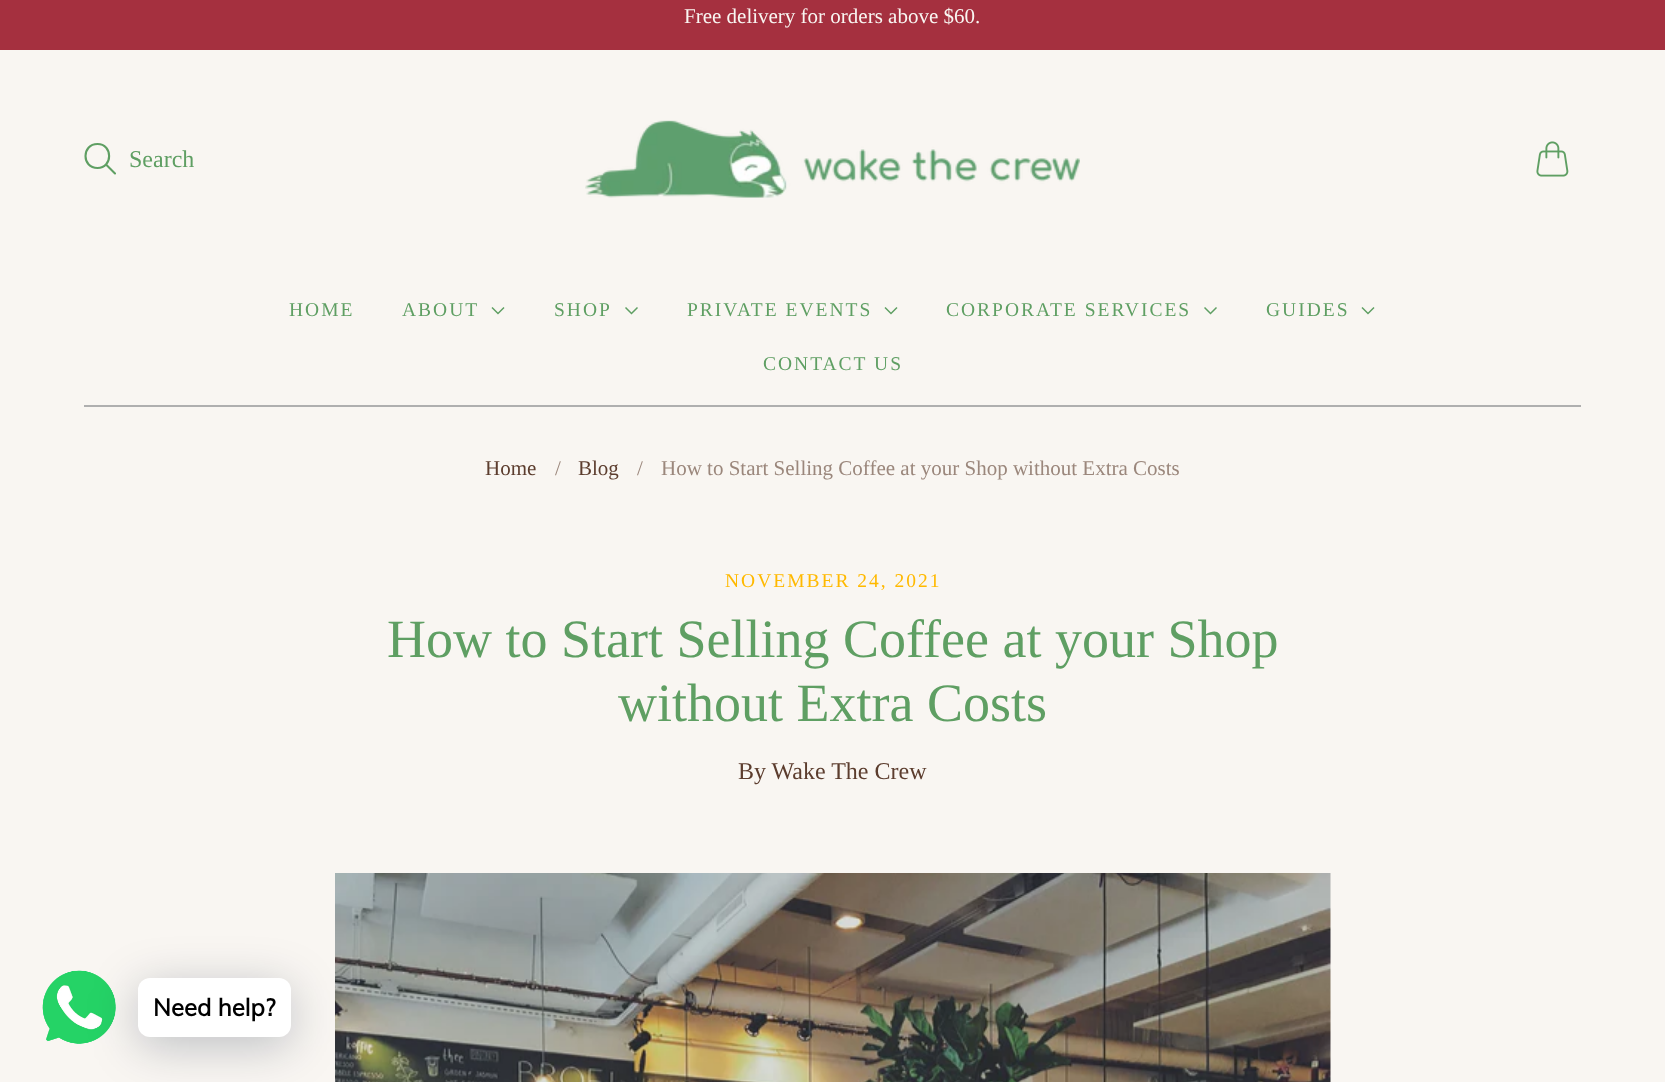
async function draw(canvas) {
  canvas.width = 1665;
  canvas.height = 1082;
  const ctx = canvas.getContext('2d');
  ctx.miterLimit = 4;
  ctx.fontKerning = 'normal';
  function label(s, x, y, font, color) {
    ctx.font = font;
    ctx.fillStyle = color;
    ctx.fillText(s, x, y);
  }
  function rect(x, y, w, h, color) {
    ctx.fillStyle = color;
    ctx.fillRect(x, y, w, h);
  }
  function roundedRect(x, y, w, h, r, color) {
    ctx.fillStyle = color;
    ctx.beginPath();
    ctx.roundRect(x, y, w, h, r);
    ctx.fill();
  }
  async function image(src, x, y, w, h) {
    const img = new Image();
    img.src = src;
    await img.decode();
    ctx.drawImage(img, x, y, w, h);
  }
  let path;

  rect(0, 0, 1665, 1082, '#f9f6f2');
  rect(0, 0, 1665, 50, '#a5303f');
  label('Free delivery for orders above $60.', 684, 23, '21px Liberation Serif', '#f9f6f2');
  path = new Path2D('M97.5 168C113 168 113 144 97.5 144C81.5 144 81.5 168 97.5 168ZM115 173.5L106 164.5');
  ctx.strokeStyle = '#5f9f63';
  ctx.lineWidth = 2.1;
  ctx.lineCap = 'round';
  ctx.lineJoin = 'round';
  ctx.stroke(path);
  label('Search', 129, 167, '24px Liberation Serif', '#5f9f63');
  await image('assets/img1.png', 1536, 141, 33, 36);
  rect(84, 405, 1497, 2, '#afafaf');
  await image('assets/img2.png', 585, 120, 495, 78);
  ctx.letterSpacing = '2px';
  label('HOME', 289, 316, '19.5px Liberation Serif', '#5f9f63');
  label('ABOUT', 402, 316, '19.5px Liberation Serif', '#5f9f63');
  path = new Path2D('M492 307.5L498 313.5L504 307.5');
  ctx.lineWidth = 1.5;
  ctx.lineCap = 'butt';
  ctx.lineJoin = 'miter';
  ctx.stroke(path);
  label('SHOP', 554, 316, '19.5px Liberation Serif', '#5f9f63');
  path = new Path2D('M625.5 307.5L631.5 313.5L637.5 307.5');
  ctx.stroke(path);
  label('PRIVATE EVENTS', 687, 316, '19.5px Liberation Serif', '#5f9f63');
  path = new Path2D('M885 307.5L891 313.5L897 307.5');
  ctx.stroke(path);
  label('CORPORATE SERVICES', 946, 316, '19.5px Liberation Serif', '#5f9f63');
  path = new Path2D('M1204.5 307.5L1210.5 313.5L1216.5 307.5');
  ctx.stroke(path);
  label('GUIDES', 1266, 316, '19.5px Liberation Serif', '#5f9f63');
  path = new Path2D('M1362 307.5L1368 313.5L1374 307.5');
  ctx.stroke(path);
  label('CONTACT US', 763, 370, '19.5px Liberation Serif', '#5f9f63');
  ctx.letterSpacing = '0px';
  label('Home', 485, 475, '21px Liberation Serif', '#5c3d2e');
  label('/', 555, 475, '21px Liberation Serif', '#9b877c');
  label('Blog', 578, 475, '21px Liberation Serif', '#5c3d2e');
  label('/', 637, 475, '21px Liberation Serif', '#9b877c');
  label('How to Start Selling Coffee at your Shop without Extra Costs', 661, 475, '21px Liberation Serif', '#9b877c');
  ctx.letterSpacing = '2px';
  label('NOVEMBER 24, 2021', 725, 587, '19.5px Liberation Serif', '#ffb900');
  ctx.letterSpacing = '0px';
  label('How to Start Selling Coffee at your Shop', 387, 657, '54px Liberation Serif', '#5f9f63');
  label('without Extra Costs', 618, 721, '54px Liberation Serif', '#5f9f63');
  label('By Wake The Crew', 738, 779, '24px Liberation Serif', '#5c3d2e');
  await image('assets/img3.png', 335, 873, 996, 209);
  await image('assets/img4.png', 42, 970, 74, 74);
  ctx.fillStyle = '#00122e3d';
  ctx.filter = 'blur(24px)';
  ctx.beginPath();
  ctx.roundRect(138, 987, 153, 59, 12);
  ctx.fill();
  ctx.filter = 'none';
  roundedRect(138, 978, 153, 59, 12, '#fff');
  label('Need help?', 153, 1016, 'bold 24px Muli', '#000');
}

draw(document.querySelector('canvas'));
